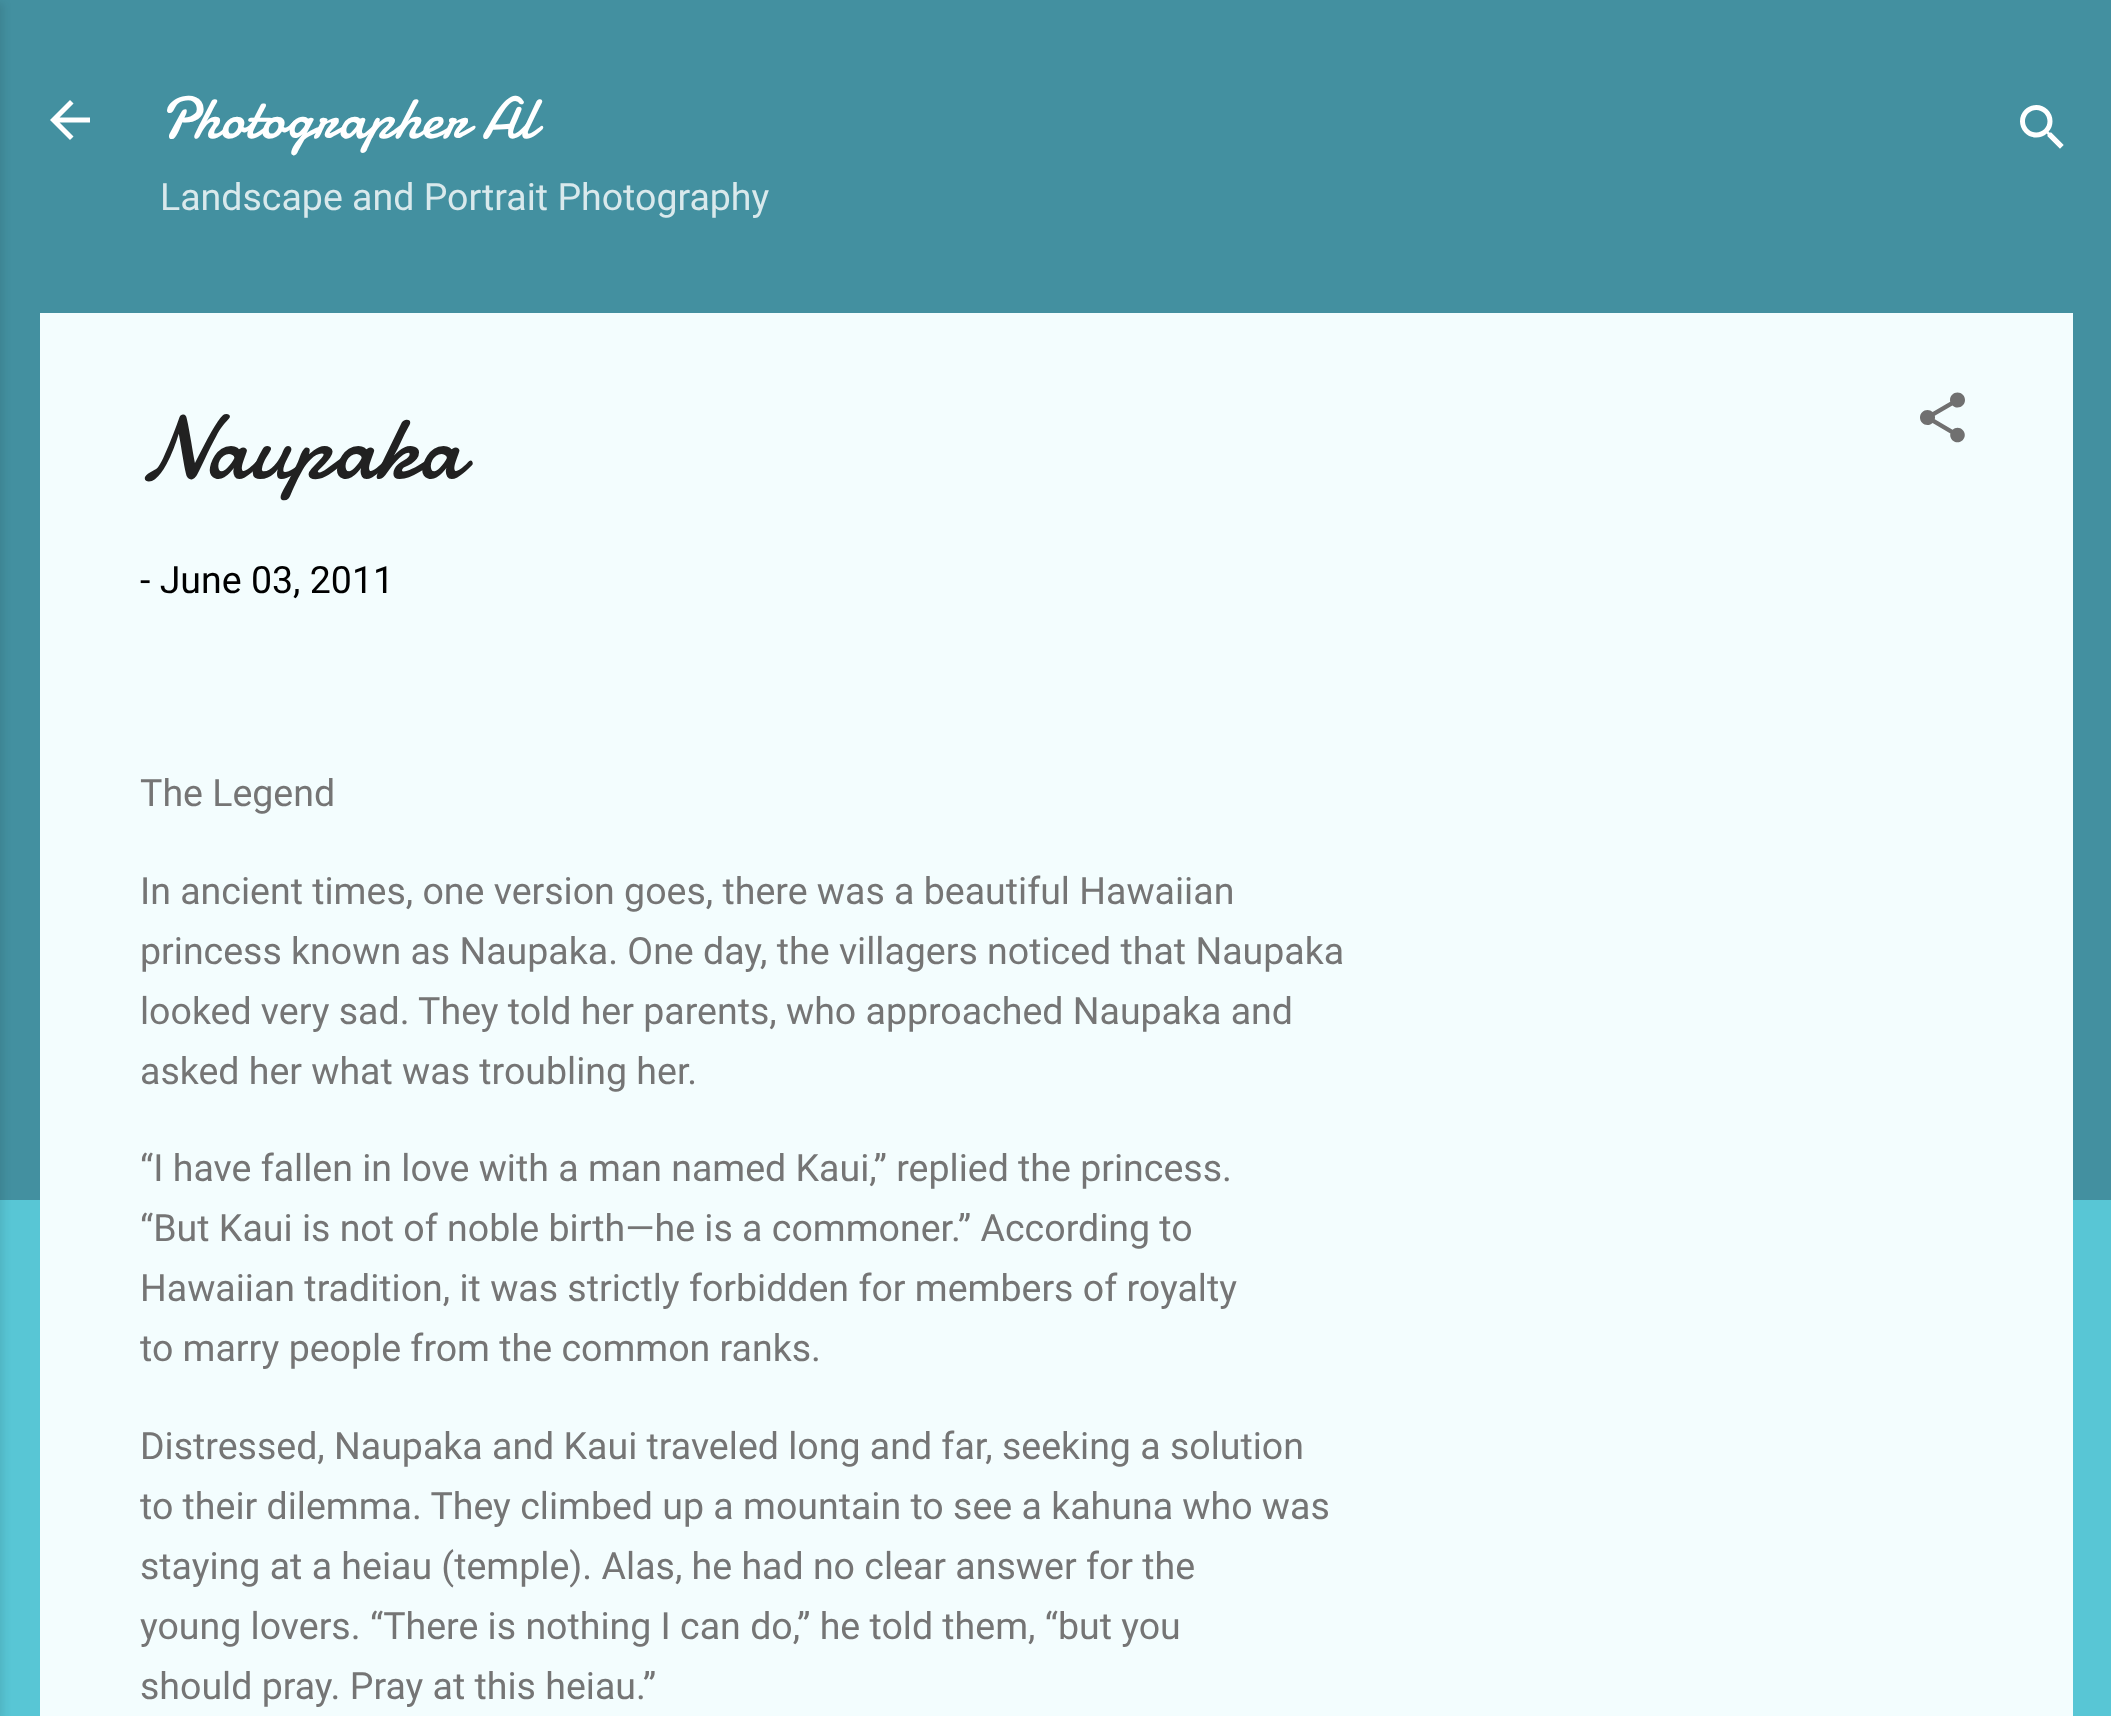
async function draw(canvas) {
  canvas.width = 2111;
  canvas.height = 1716;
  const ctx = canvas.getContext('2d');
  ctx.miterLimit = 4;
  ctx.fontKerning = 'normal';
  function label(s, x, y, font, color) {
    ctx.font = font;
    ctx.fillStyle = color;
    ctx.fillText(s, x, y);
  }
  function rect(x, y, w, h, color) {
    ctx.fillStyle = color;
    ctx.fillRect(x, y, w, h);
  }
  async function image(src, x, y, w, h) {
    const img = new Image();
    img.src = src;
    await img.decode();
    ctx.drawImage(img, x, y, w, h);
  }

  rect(0, 0, 2111, 1716, '#58c6d5');
  rect(0, 0, 2111, 1200, '#4390a0');
  ctx.fillStyle = '#0000001a';
  ctx.filter = 'blur(4px)';
  ctx.beginPath();
  ctx.rect(-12, 3, 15, 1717);
  ctx.fill();
  ctx.filter = 'none';
  await image('assets/img1.png', 50, 100, 40, 40);
  label('Photographer Al', 160, 138, '60px Damion', '#fff');
  label('Landscape and Portrait Photography', 160, 210, '37.5px Roboto', '#d9e9ec');
  await image('assets/img2.png', 2020, 105, 44, 44);
  rect(40, 313, 2033, 1403, '#f3fdfe');
  label('Naupaka', 140, 478, '90px Damion', '#212121');
  await image('assets/img3.png', 1920, 392, 45, 51);
  label('- June 03, 2011', 140, 593, '37.5px Roboto', '#000');
  label('The Legend', 140, 806, '37.5px Roboto', '#757575');
  label('In ancient times, one version goes, there was a beautiful Hawaiian', 140, 904, '37.5px Roboto', '#757575');
  label('princess known as Naupaka. One day, the villagers noticed that Naupaka', 140, 964, '37.5px Roboto', '#757575');
  label('looked very sad. They told her parents, who approached Naupaka and', 140, 1024, '37.5px Roboto', '#757575');
  label('asked her what was troubling her.', 140, 1084, '37.5px Roboto', '#757575');
  label('“I have fallen in love with a man named Kaui,” replied the princess.', 140, 1181, '37.5px Roboto', '#757575');
  label('“But Kaui is not of noble birth—he is a commoner.” According to', 140, 1241, '37.5px Roboto', '#757575');
  label('Hawaiian tradition, it was strictly forbidden for members of royalty', 140, 1301, '37.5px Roboto', '#757575');
  label('to marry people from the common ranks.', 140, 1361, '37.5px Roboto', '#757575');
  label('Distressed, Naupaka and Kaui traveled long and far, seeking a solution', 140, 1459, '37.5px Roboto', '#757575');
  label('to their dilemma. They climbed up a mountain to see a kahuna who was', 140, 1519, '37.5px Roboto', '#757575');
  label('staying at a heiau (temple). Alas, he had no clear answer for the', 140, 1579, '37.5px Roboto', '#757575');
  label('young lovers. “There is nothing I can do,” he told them, “but you', 140, 1639, '37.5px Roboto', '#757575');
  label('should pray. Pray at this heiau.”', 140, 1699, '37.5px Roboto', '#757575');
}

draw(document.querySelector('canvas'));
